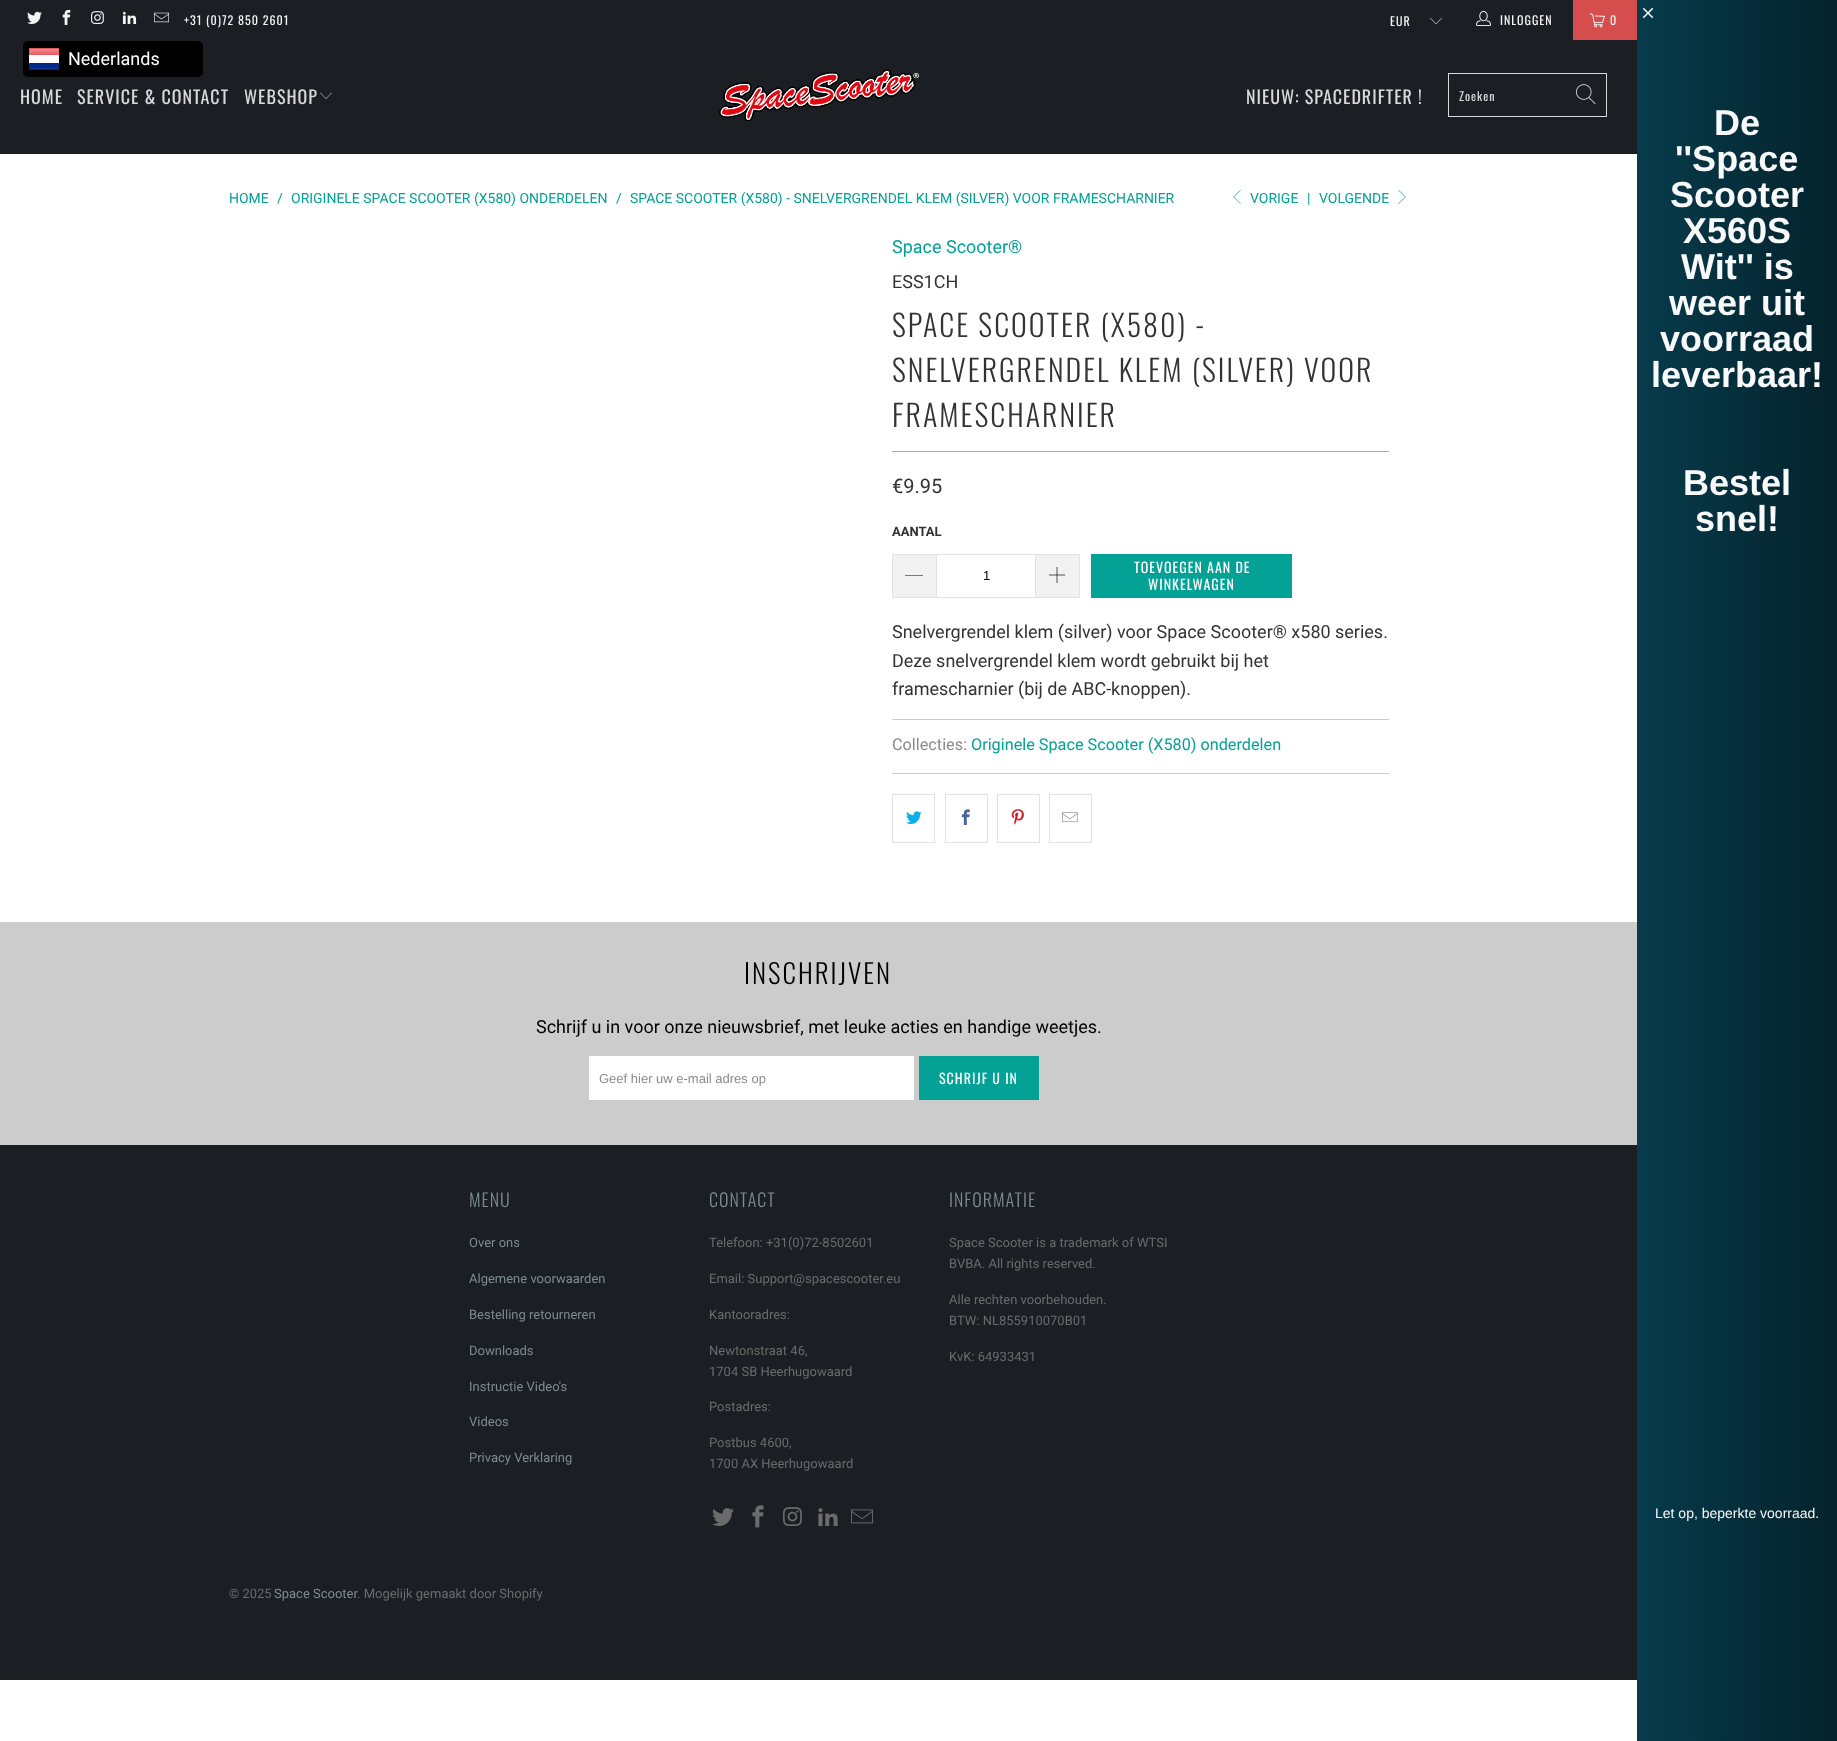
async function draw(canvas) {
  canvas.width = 1837;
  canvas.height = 1741;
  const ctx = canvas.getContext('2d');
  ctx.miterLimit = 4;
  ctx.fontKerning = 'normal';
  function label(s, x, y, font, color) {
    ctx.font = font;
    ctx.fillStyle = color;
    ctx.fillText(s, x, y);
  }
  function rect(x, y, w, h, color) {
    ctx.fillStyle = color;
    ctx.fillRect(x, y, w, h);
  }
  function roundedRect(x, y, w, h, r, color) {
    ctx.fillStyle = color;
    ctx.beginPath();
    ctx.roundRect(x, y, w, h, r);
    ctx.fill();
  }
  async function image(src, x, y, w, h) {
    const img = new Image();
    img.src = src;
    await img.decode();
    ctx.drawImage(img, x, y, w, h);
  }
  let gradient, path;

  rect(0, 0, 1837, 1741, '#fff');
  rect(0, 0, 1573, 40, '#1b1f23');
  await image('assets/img1.png', 27, 11, 15, 13);
  await image('assets/img2.png', 62, 9, 9, 16);
  await image('assets/img3.png', 91, 11, 13, 13);
  await image('assets/img4.png', 122, 11, 15, 13);
  await image('assets/img5.png', 154, 12, 15, 11);
  ctx.letterSpacing = '1px';
  label('+31 (0)72 850 2601', 184, 25, '12px Oswald', '#f4f4f4');
  await image('assets/img6.png', 1430, 17, 12, 8);
  label('EUR', 1390, 26, '12px Oswald', '#f4f4f4');
  await image('assets/img7.png', 1476, 10, 15, 16);
  label('INLOGGEN', 1500, 25, '12px Oswald', '#f4f4f4');
  rect(1573, 0, 64, 40, '#d54d4d');
  await image('assets/img8.png', 1590, 13, 15, 15);
  label('0', 1610, 25, '12px Oswald', '#f4f4f4');
  rect(0, 40, 1637, 114, '#1b1f23');
  label('HOME', 20, 104, '18px Oswald', '#d9d9d9');
  label('SERVICE & CONTACT', 77, 104, '18px Oswald', '#d9d9d9');
  label('WEBSHOP', 244, 104, '18px Oswald', '#d9d9d9');
  await image('assets/img9.png', 320, 92, 12, 7);
  await image('assets/img10.png', 719, 70, 200, 51);
  label('NIEUW: SPACEDRIFTER !', 1246, 104, '18px Oswald', '#d9d9d9');
  ctx.strokeStyle = '#d9d9d9';
  ctx.strokeRect(1448.5, 73.5, 158, 43);
  label('Zoeken', 1459, 101, '12px Oswald', '#d9d9d9');
  await image('assets/img11.png', 1576, 84, 20, 21);
  roundedRect(23, 41, 180, 36, 5, '#000');
  await image('assets/img12.png', 29, 48, 30, 22);
  ctx.letterSpacing = '0px';
  label('Nederlands', 68, 65, '18px Roboto', '#fff');
  label('HOME', 229, 203, '14px Roboto', '#03a196');
  label('/', 277, 203, '14px Roboto', '#03a196');
  label('ORIGINELE SPACE SCOOTER (X580) ONDERDELEN', 291, 203, '14px Roboto', '#03a196');
  label('/', 616, 203, '14px Roboto', '#03a196');
  label('SPACE SCOOTER (X580) - SNELVERGRENDEL KLEM (SILVER) VOOR FRAMESCHARNIER', 630, 203, '14px Roboto', '#03a196');
  await image('assets/img13.png', 1233, 190, 8, 14);
  label('VORIGE', 1250, 203, '14px Roboto', '#03a196');
  label('|', 1307, 203, '14px Roboto', '#03a196');
  label('VOLGENDE', 1319, 203, '14px Roboto', '#03a196');
  await image('assets/img14.png', 1398, 190, 8, 14);
  label('Space Scooter®', 892, 253, '18px Roboto', '#03a196');
  label('ESS1CH', 892, 288, '18px Roboto', '#333');
  ctx.letterSpacing = '2px';
  label('SPACE SCOOTER (X580) -', 892, 337, '300 30px Oswald', '#333');
  label('SNELVERGRENDEL KLEM (SILVER) VOOR', 892, 382, '300 30px Oswald', '#333');
  label('FRAMESCHARNIER', 892, 427, '300 30px Oswald', '#333');
  rect(892, 451, 497, 1, '#aaa');
  ctx.letterSpacing = '0px';
  label('€9.95', 892, 493, '20px Roboto', '#333');
  label('AANTAL', 892, 536, 'bold 13px Roboto', '#333');
  rect(893, 555, 43, 42, '#f2f2f2');
  rect(892, 554, 44, 1, '#e2e2e2');
  rect(892, 597, 44, 1, '#e2e2e2');
  rect(892, 554, 1, 44, '#e2e2e2');
  ctx.fillStyle = '#000';
  path = new Path2D('M905 575H923V575.5H905Z');
  ctx.fill(path);
  ctx.strokeStyle = '#e2e2e2';
  ctx.strokeRect(936.5, 554.5, 99, 43);
  label('1', 983, 580, '13px Liberation Sans', '#000');
  rect(1036, 555, 43, 42, '#f2f2f2');
  rect(1036, 554, 44, 1, '#e2e2e2');
  rect(1079, 554, 1, 44, '#e2e2e2');
  rect(1036, 597, 44, 1, '#e2e2e2');
  await image('assets/img15.png', 1049, 567, 16, 16);
  rect(1091, 554, 201, 44, '#03a196');
  ctx.letterSpacing = '1px';
  label('TOEVOEGEN AAN DE', 1134, 573, '14px Oswald', '#fff');
  label('WINKELWAGEN', 1148, 590, '14px Oswald', '#fff');
  ctx.letterSpacing = '0px';
  label('Snelvergrendel klem (silver) voor Space Scooter® x580 series.', 892, 638, '18px Roboto', '#333');
  label('Deze snelvergrendel klem wordt gebruikt bij het', 892, 667, '18px Roboto', '#333');
  label('framescharnier (bij de ABC-knoppen).', 892, 695, '18px Roboto', '#333');
  rect(892, 719, 497, 1, '#ccc');
  label('Collecties:', 892, 750, '16.25px Roboto', '#8c8b8b');
  label('Originele Space Scooter (X580) onderdelen', 971, 750, '16.25px Roboto', '#03a196');
  rect(892, 773, 497, 1, '#ccc');
  ctx.strokeRect(892.5, 794.5, 42, 48);
  await image('assets/img16.png', 906, 811, 16, 13);
  ctx.strokeRect(945.5, 794.5, 42, 48);
  await image('assets/img17.png', 961, 809, 9, 16);
  ctx.strokeRect(997.5, 794.5, 42, 48);
  await image('assets/img18.png', 1011, 809, 13, 16);
  ctx.strokeRect(1049.5, 794.5, 42, 48);
  await image('assets/img19.png', 1062, 812, 16, 11);
  gradient = ctx.createLinearGradient(1837, 871, 1637, 871);
  gradient.addColorStop(0, '#04222b');
  gradient.addColorStop(1, '#073b4c');
  ctx.fillStyle = gradient;
  ctx.fillRect(1637, 0, 200, 1741);
  await image('assets/img20.png', 1642, 7, 12, 12);
  label('De', 1714, 135, 'bold 36px Liberation Sans', '#f8f9fa');
  label('\'\'Space', 1675, 171, 'bold 36px Liberation Sans', '#f8f9fa');
  label('Scooter', 1670, 207, 'bold 36px Liberation Sans', '#f8f9fa');
  label('X560S', 1683, 243, 'bold 36px Liberation Sans', '#f8f9fa');
  label('Wit\'\' is', 1681, 279, 'bold 36px Liberation Sans', '#f8f9fa');
  label('weer uit', 1669, 315, 'bold 36px Liberation Sans', '#f8f9fa');
  label('voorraad', 1660, 351, 'bold 36px Liberation Sans', '#f8f9fa');
  label('leverbaar!', 1651, 387, 'bold 36px Liberation Sans', '#f8f9fa');
  label('Bestel', 1683, 495, 'bold 36px Liberation Sans', '#f8f9fa');
  label('snel!', 1695, 531, 'bold 36px Liberation Sans', '#f8f9fa');
  label('Let op, beperkte voorraad.', 1655, 1518, '14px Liberation Sans', '#f8f9fa');
  rect(0, 922, 1637, 223, '#ccc');
  ctx.letterSpacing = '2px';
  label('INSCHRIJVEN', 744, 984, '300 27px Oswald', '#000');
  ctx.letterSpacing = '0px';
  label('Schrijf u in voor onze nieuwsbrief, met leuke acties en handige weetjes.', 536, 1033, '18px Roboto', '#000');
  rect(589, 1056, 325, 44, '#fff');
  label('Geef hier uw e-mail adres op', 599, 1083, '13px Liberation Sans', '#8c8b8b');
  rect(919, 1056, 120, 44, '#03a196');
  ctx.letterSpacing = '1px';
  label('SCHRIJF U IN', 939, 1084, '14px Oswald', '#fff');
  rect(0, 1145, 1637, 535, '#1b1f23');
  label('MENU', 469, 1207, '300 18px Oswald', '#7f8c8d');
  ctx.letterSpacing = '0px';
  label('Over ons', 469, 1247, '13px Roboto', '#7f8c8d');
  label('Algemene voorwaarden', 469, 1283, '13px Roboto', '#7f8c8d');
  label('Bestelling retourneren', 469, 1319, '13px Roboto', '#7f8c8d');
  label('Downloads', 469, 1355, '13px Roboto', '#7f8c8d');
  label('Instructie Video\'s', 469, 1391, '13px Roboto', '#7f8c8d');
  label('Videos', 469, 1426, '13px Roboto', '#7f8c8d');
  label('Privacy Verklaring', 469, 1462, '13px Roboto', '#7f8c8d');
  ctx.letterSpacing = '1px';
  label('CONTACT', 709, 1207, '300 18px Oswald', '#7f8c8d');
  ctx.letterSpacing = '0px';
  label('Telefoon: +31(0)72-8502601', 709, 1247, '13px Roboto', '#6b6b6b');
  label('Email: Support@spacescooter.eu', 709, 1283, '13px Roboto', '#6b6b6b');
  label('Kantooradres:', 709, 1319, '13px Roboto', '#6b6b6b');
  label('Newtonstraat 46,', 709, 1355, '13px Roboto', '#6b6b6b');
  label('1704 SB Heerhugowaard', 709, 1376, '13px Roboto', '#6b6b6b');
  label('Postadres:', 709, 1411, '13px Roboto', '#6b6b6b');
  label('Postbus 4600,', 709, 1447, '13px Roboto', '#6b6b6b');
  label('1700 AX Heerhugowaard', 709, 1468, '13px Roboto', '#6b6b6b');
  await image('assets/img21.png', 712, 1508, 22, 18);
  await image('assets/img22.png', 752, 1505, 12, 23);
  await image('assets/img23.png', 783, 1507, 19, 19);
  await image('assets/img24.png', 818, 1508, 20, 18);
  await image('assets/img25.png', 851, 1509, 22, 15);
  ctx.letterSpacing = '1px';
  label('INFORMATIE', 949, 1207, '300 18px Oswald', '#7f8c8d');
  ctx.letterSpacing = '0px';
  label('Space Scooter is a trademark of WTSI', 949, 1247, '13px Roboto', '#6b6b6b');
  label('BVBA. All rights reserved.', 949, 1268, '13px Roboto', '#6b6b6b');
  label('Alle rechten voorbehouden.', 949, 1304, '13px Roboto', '#6b6b6b');
  label('BTW: NL855910070B01', 949, 1325, '13px Roboto', '#6b6b6b');
  label('KvK: 64933431', 949, 1361, '13px Roboto', '#6b6b6b');
  label('© 2025', 229, 1598, '13px Roboto', '#6b6b6b');
  label('Space', 274, 1598, '13px Roboto', '#7f8c8d');
  label('Scooter', 313, 1598, '13px Roboto', '#7f8c8d');
  label('. Mogelijk gemaakt door Shopify', 357, 1598, '13px Roboto', '#6b6b6b');
}

draw(document.querySelector('canvas'));
